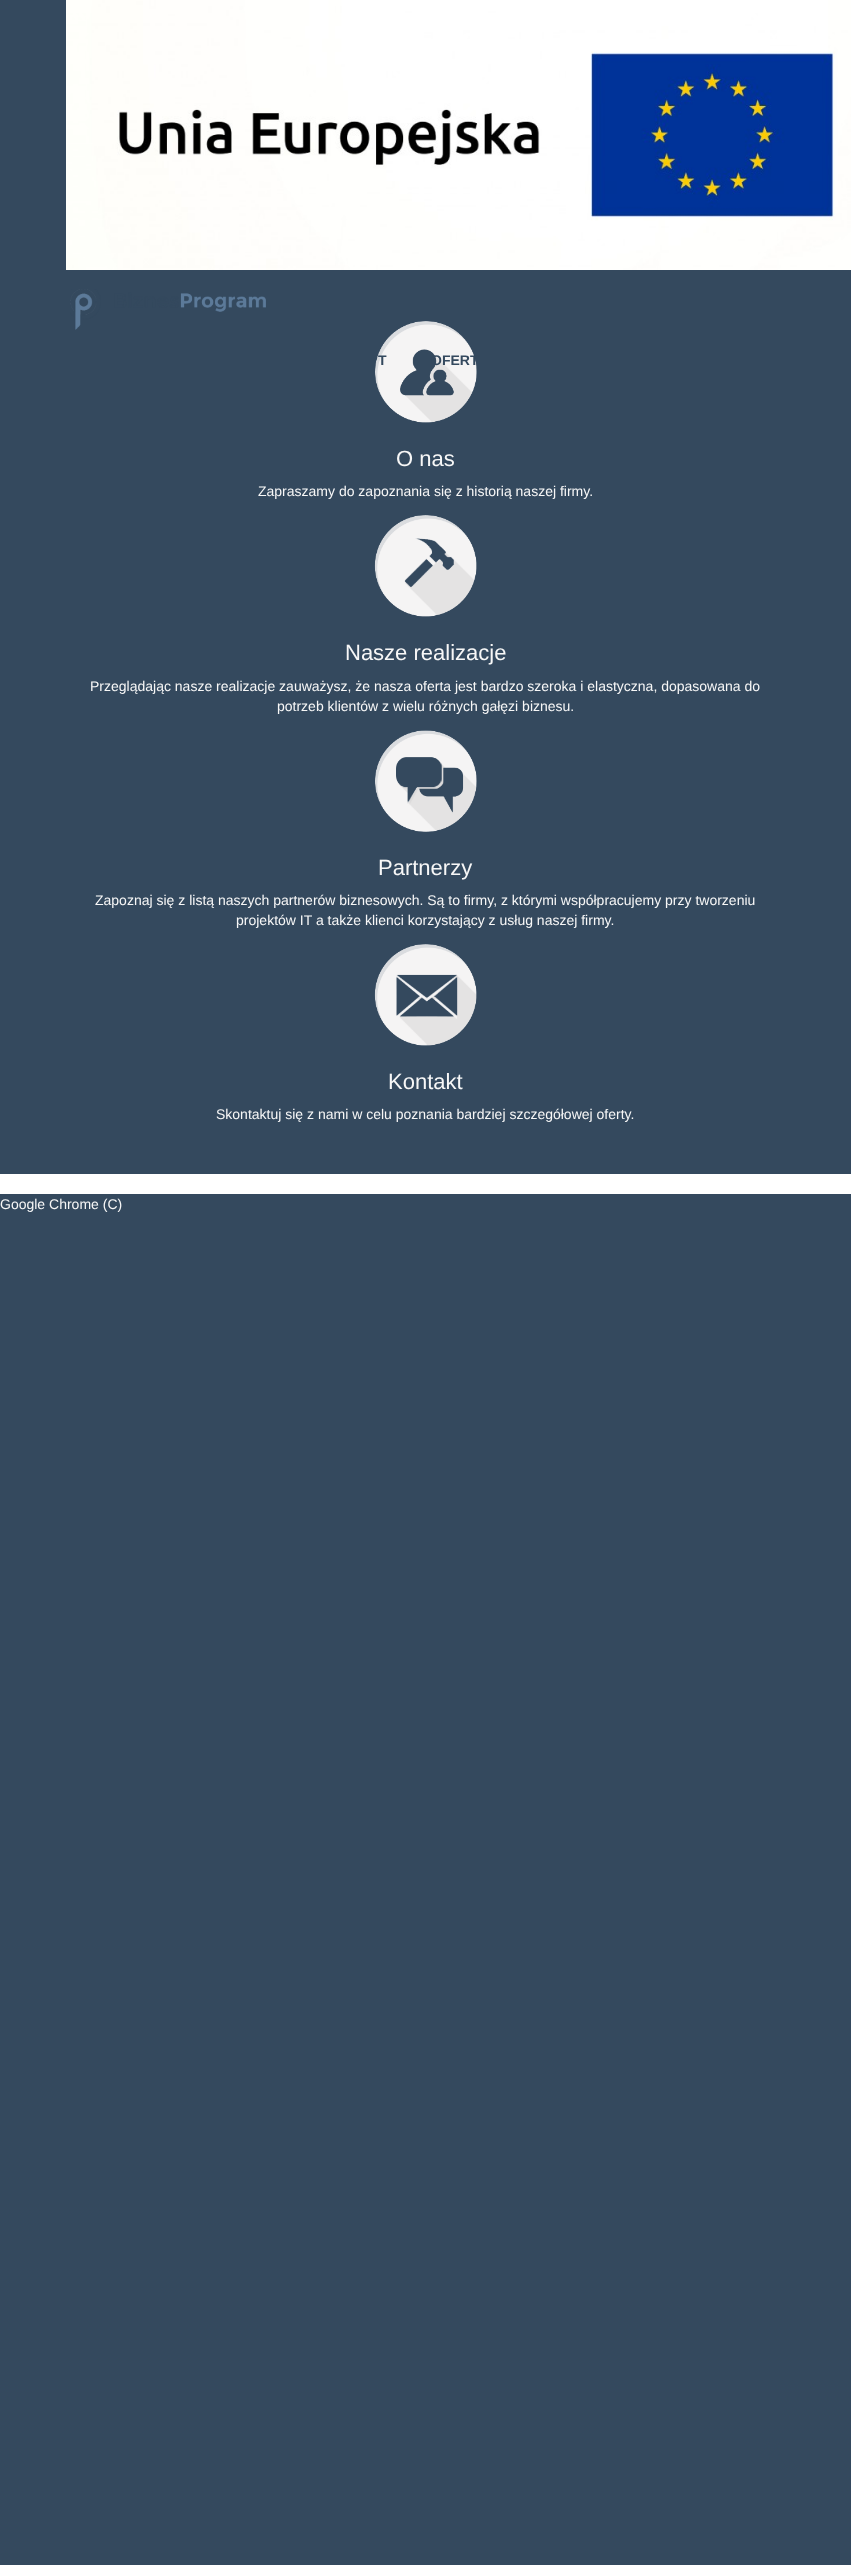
async function draw(canvas) {
  canvas.width = 851;
  canvas.height = 2565;
  const ctx = canvas.getContext('2d');
  ctx.miterLimit = 4;
  ctx.fontKerning = 'normal';
  function label(s, x, y, font, color) {
    ctx.font = font;
    ctx.fillStyle = color;
    ctx.fillText(s, x, y);
  }
  function rect(x, y, w, h, color) {
    ctx.fillStyle = color;
    ctx.fillRect(x, y, w, h);
  }
  async function image(src, x, y, w, h) {
    const img = new Image();
    img.src = src;
    await img.decode();
    ctx.drawImage(img, x, y, w, h);
  }

  rect(0, 0, 851, 2565, '#34495e');
  await image('assets/img1.png', 66, 0, 785, 270);
  await image('assets/img2.png', 70, 289, 196, 41);
  await image('assets/img3.png', 375, 321, 102, 102);
  label('T', 378, 365, 'bold 14px Liberation Sans', '#34495e');
  label('OFERT', 431, 365, 'bold 14px Liberation Sans', '#34495e');
  label('O nas', 396, 466, '22px Liberation Sans', '#f7f7f7');
  label('Zapraszamy do zapoznania się z historią naszej firmy.', 258, 496, '14px Liberation Sans', '#f7f7f7');
  await image('assets/img4.png', 374, 515, 103, 102);
  label('Nasze realizacje', 345, 660, '22px Liberation Sans', '#f7f7f7');
  label('Przeglądając nasze realizacje zauważysz, że nasza oferta jest bardzo szeroka i elastyczna, dopasowana do', 90, 691, '14px Liberation Sans', '#f7f7f7');
  label('potrzeb klientów z wielu różnych gałęzi biznesu.', 277, 711, '14px Liberation Sans', '#f7f7f7');
  await image('assets/img5.png', 375, 730, 102, 102);
  label('Partnerzy', 378, 875, '22px Liberation Sans', '#f7f7f7');
  label('Zapoznaj się z listą naszych partnerów biznesowych. Są to firmy, z którymi współpracujemy przy tworzeniu', 95, 905, '14px Liberation Sans', '#f7f7f7');
  label('projektów IT a także klienci korzystający z usług naszej firmy.', 236, 925, '14px Liberation Sans', '#f7f7f7');
  await image('assets/img6.png', 374, 944, 103, 102);
  label('Kontakt', 388, 1089, '22px Liberation Sans', '#f7f7f7');
  label('Skontaktuj się z nami w celu poznania bardziej szczegółowej oferty.', 216, 1119, '14px Liberation Sans', '#f7f7f7');
  rect(0, 1174, 851, 20, '#fff');
  label('Google Chrome (C)', 0, 1209, '14px Liberation Sans', '#f7f7f7');
}

draw(document.querySelector('canvas'));
